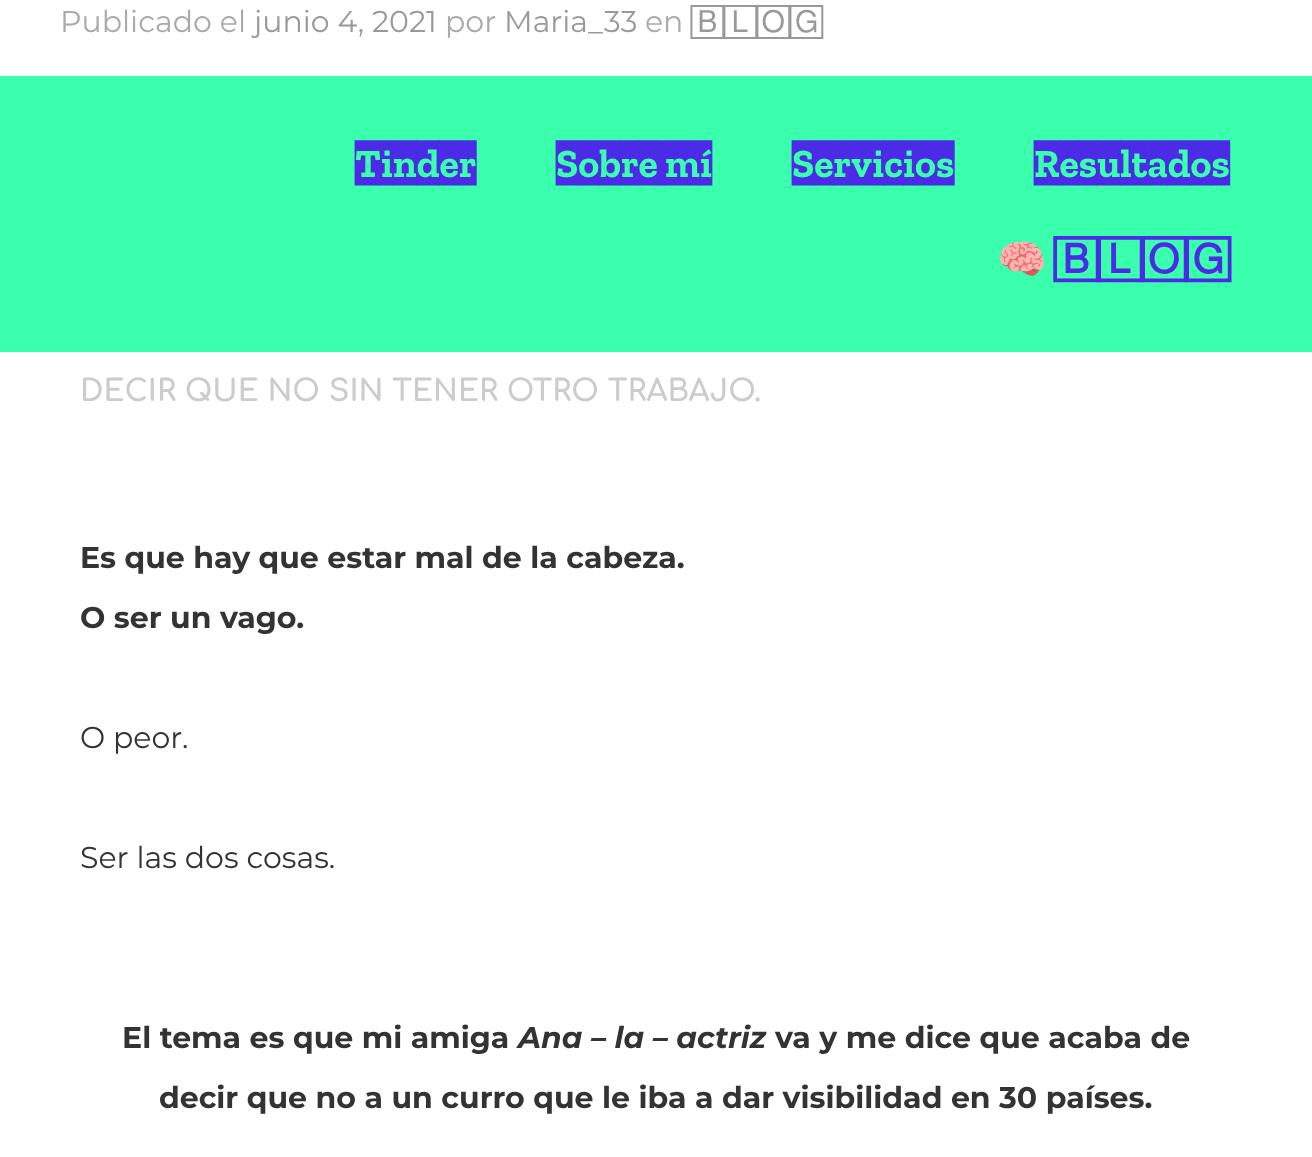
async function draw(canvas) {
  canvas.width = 1312;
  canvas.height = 1157;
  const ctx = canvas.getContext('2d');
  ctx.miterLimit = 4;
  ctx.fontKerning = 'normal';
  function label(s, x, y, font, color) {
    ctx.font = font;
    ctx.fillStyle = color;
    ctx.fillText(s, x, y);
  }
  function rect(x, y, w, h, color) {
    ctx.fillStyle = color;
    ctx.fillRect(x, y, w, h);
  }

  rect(0, 0, 1312, 1157, '#fff');
  label('Publicado el', 60, 32, '30px Montserrat', '#aaa');
  label('junio 4, 2021', 254, 32, '30px Montserrat', '#999');
  label('por', 445, 32, '30px Montserrat', '#aaa');
  label('Maria_33', 504, 32, '30px Montserrat', '#999');
  label('en', 645, 32, '30px Montserrat', '#aaa');
  label('🄱🄻🄾🄶', 691, 32, '30px FreeSans', '#999');
  rect(0, 76, 1312, 276, '#3affad');
  label('Tinder', 355, 177, '300 40px Zilla Slab Highlight', '#4c2be7');
  label('Sobre mí', 556, 177, '300 40px Zilla Slab Highlight', '#4c2be7');
  label('Servicios', 792, 177, '300 40px Zilla Slab Highlight', '#4c2be7');
  label('Resultados', 1034, 177, '300 40px Zilla Slab Highlight', '#4c2be7');
  label('🧠', 997, 273, 'bold 40px Noto Color Emoji', '#4c2be7');
  label('🄱🄻🄾🄶', 1054, 273, 'bold 40px FreeSans', '#4c2be7');
  label('DECIR QUE NO SIN TENER OTRO TRABAJO.', 80, 401, 'bold 30px Comfortaa', '#ccc');
  label('Es que hay que estar mal de la cabeza.', 80, 568, 'bold 30px Montserrat', '#333');
  label('O ser un vago.', 80, 628, 'bold 30px Montserrat', '#333');
  label('O peor.', 80, 748, '30px Montserrat', '#333');
  label('Ser las dos cosas.', 80, 868, '30px Montserrat', '#333');
  label('El tema es que mi amiga', 122, 1048, 'bold 30px Montserrat', '#333');
  label('Ana – la – actriz', 518, 1048, 'italic bold 30px Montserrat', '#333');
  label('va y me dice que acaba de', 775, 1048, 'bold 30px Montserrat', '#333');
  label('decir que no a un curro que le iba a dar visibilidad en 30 países.', 159, 1108, 'bold 30px Montserrat', '#333');
}

draw(document.querySelector('canvas'));
